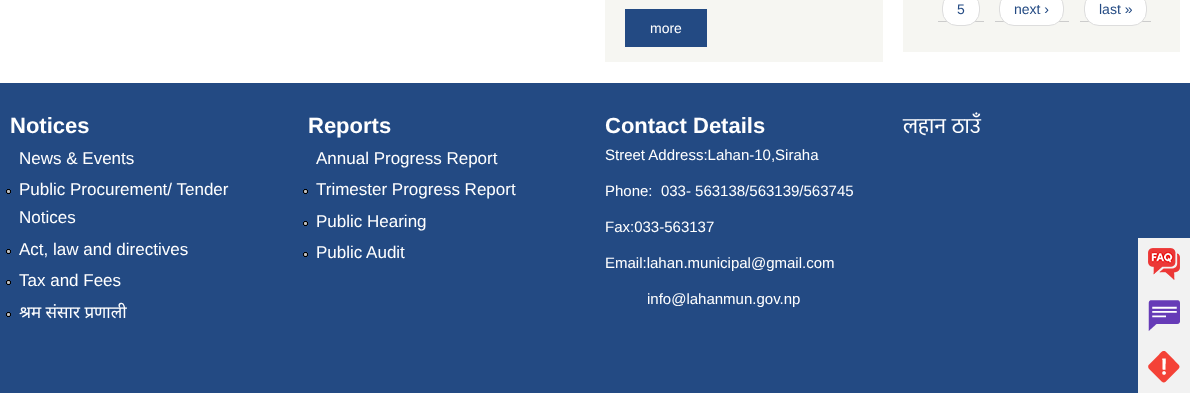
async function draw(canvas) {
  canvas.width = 1190;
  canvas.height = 393;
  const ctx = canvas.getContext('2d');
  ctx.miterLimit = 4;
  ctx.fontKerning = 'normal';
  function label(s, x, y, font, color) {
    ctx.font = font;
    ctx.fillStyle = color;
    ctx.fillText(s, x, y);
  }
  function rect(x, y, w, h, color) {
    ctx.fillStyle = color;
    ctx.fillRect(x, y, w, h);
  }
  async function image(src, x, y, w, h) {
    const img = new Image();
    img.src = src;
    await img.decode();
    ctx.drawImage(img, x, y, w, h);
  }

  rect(0, 0, 1190, 393, '#fff');
  rect(903, 0, 277, 52, '#f6f6f2');
  rect(938, 21, 46, 1, '#ccc');
  ctx.fillStyle = '#fff';
  ctx.beginPath();
  ctx.roundRect(942.5, -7.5, 37, 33, 14.5);
  ctx.fill();
  ctx.strokeStyle = '#ddd';
  ctx.stroke();
  label('5', 957, 14, '14px Liberation Sans', '#234a83');
  rect(995, 21, 74, 1, '#ccc');
  ctx.fillStyle = '#fff';
  ctx.beginPath();
  ctx.roundRect(999.5, -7.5, 64, 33, 14.5);
  ctx.fill();
  ctx.stroke();
  label('next ›', 1014, 14, '14px Liberation Sans', '#234a83');
  rect(1080, 21, 71, 1, '#ccc');
  ctx.fillStyle = '#fff';
  ctx.beginPath();
  ctx.roundRect(1084.5, -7.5, 62, 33, 14.5);
  ctx.fill();
  ctx.stroke();
  label('last »', 1099, 14, '14px Liberation Sans', '#234a83');
  rect(605, 0, 278, 62, '#f6f6f2');
  rect(625, 9, 82, 38, '#234a83');
  label('more', 650, 33, '14px Liberation Sans', '#fff');
  rect(0, 83, 1190, 310, '#234a83');
  label('Notices', 10, 133, 'bold 22px Liberation Sans', '#fff');
  label('News & Events', 19, 164, '17px Liberation Sans', '#fff');
  await image('assets/img1.png', 6, 189, 5, 5);
  label('Public Procurement/ Tender', 19, 195, '17px Liberation Sans', '#fff');
  label('Notices', 19, 223, '17px Liberation Sans', '#fff');
  await image('assets/img1.png', 6, 249, 5, 5);
  label('Act, law and directives', 19, 255, '17px Liberation Sans', '#fff');
  await image('assets/img1.png', 6, 280, 5, 5);
  label('Tax and Fees', 19, 286, '17px Liberation Sans', '#fff');
  await image('assets/img1.png', 6, 312, 5, 5);
  label('श्रम संसार प्रणाली', 19, 318, '17px Noto Sans', '#fff');
  label('Reports', 308, 133, 'bold 22px Liberation Sans', '#fff');
  label('Annual Progress Report', 316, 164, '17px Liberation Sans', '#fff');
  await image('assets/img1.png', 303, 189, 5, 5);
  label('Trimester Progress Report', 316, 195, '17px Liberation Sans', '#fff');
  await image('assets/img1.png', 303, 221, 5, 5);
  label('Public Hearing', 316, 227, '17px Liberation Sans', '#fff');
  await image('assets/img1.png', 303, 252, 5, 5);
  label('Public Audit', 316, 258, '17px Liberation Sans', '#fff');
  label('Contact Details', 605, 133, 'bold 22px Liberation Sans', '#fff');
  label('Street Address:Lahan-10,Siraha', 605, 160, '15px Liberation Sans', '#fff');
  label('Phone:  033- 563138/563139/563745', 605, 196, '15px Liberation Sans', '#fff');
  label('Fax:033-563137', 605, 232, '15px Liberation Sans', '#fff');
  label('Email:lahan.municipal@gmail.com', 605, 268, '15px Liberation Sans', '#fff');
  label('info@lahanmun.gov.np', 647, 304, '15px Liberation Sans', '#fff');
  ctx.wordSpacing = '1px';
  label('लहान ठाउँ', 903, 133, '22px Mukta', '#fff');
  rect(1138, 238, 52, 155, '#f2f2f2');
  await image('assets/img2.png', 1148, 248, 32, 32);
  await image('assets/img3.png', 1148, 300, 32, 31);
  await image('assets/img4.png', 1148, 351, 32, 32);
}

draw(document.querySelector('canvas'));
